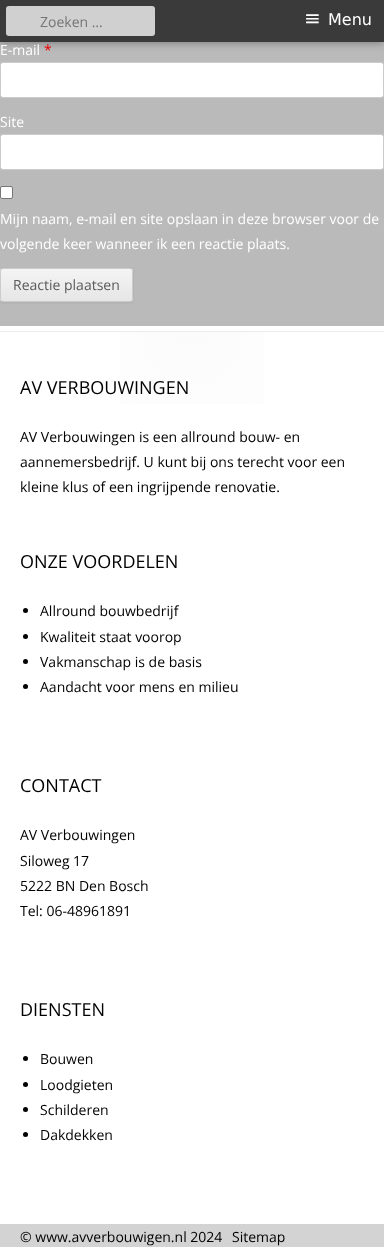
async function draw(canvas) {
  canvas.width = 384;
  canvas.height = 1247;
  const ctx = canvas.getContext('2d');
  ctx.miterLimit = 4;
  ctx.fontKerning = 'normal';
  function label(s, x, y, font, color) {
    ctx.font = font;
    ctx.fillStyle = color;
    ctx.fillText(s, x, y);
  }
  function rect(x, y, w, h, color) {
    ctx.fillStyle = color;
    ctx.fillRect(x, y, w, h);
  }
  function roundedRect(x, y, w, h, r, color) {
    ctx.fillStyle = color;
    ctx.beginPath();
    ctx.roundRect(x, y, w, h, r);
    ctx.fill();
  }
  let gradient;

  rect(0, 0, 384, 1247, '#fff');
  gradient = ctx.createLinearGradient(192, -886, 192, 326);
  gradient.addColorStop(0, '#5c5c5c');
  gradient.addColorStop(0.16, '#808080');
  gradient.addColorStop(0.41, '#bababa');
  ctx.fillStyle = gradient;
  ctx.fillRect(0, 42, 384, 284);
  ctx.fillStyle = '#00000066';
  ctx.filter = 'blur(5px)';
  ctx.beginPath();
  ctx.rect(0, 0, 384, 42);
  ctx.fill();
  ctx.filter = 'none';
  rect(0, 0, 384, 42, '#3a3a3a');
  roundedRect(6, 6, 149, 30, 3, '#d0d0d0');
  label('Zoeken …', 40, 27, '14px Open Sans', '#757575');
  label('≡', 304, 25, '20px DejaVu Sans', '#fff');
  label('Menu', 328, 25, '16px DejaVu Sans', '#fff');
  label('E-mail', 0, 55, '14px Open Sans', '#fff');
  label('*', 44, 55, '14px Open Sans', '#e00');
  ctx.fillStyle = '#fff';
  ctx.beginPath();
  ctx.roundRect(0.5, 62.5, 383, 35, 2.5);
  ctx.fill();
  ctx.strokeStyle = '#ccc';
  ctx.stroke();
  label('Site', 0, 127, '14px Open Sans', '#fff');
  ctx.beginPath();
  ctx.roundRect(0.5, 134.5, 383, 35, 2.5);
  ctx.fill();
  ctx.stroke();
  ctx.beginPath();
  ctx.roundRect(0.5, 186.5, 12, 12, 1.5);
  ctx.fill();
  ctx.strokeStyle = '#767676';
  ctx.stroke();
  label('Mijn naam, e-mail en site opslaan in deze browser voor de', 0, 224, '14px Open Sans', '#fff');
  label('volgende keer wanneer ik een reactie plaats.', 0, 249, '14px Open Sans', '#fff');
  ctx.fillStyle = '#4040401a';
  ctx.filter = 'blur(1px)';
  ctx.beginPath();
  ctx.roundRect(0, 269, 133, 34, 3);
  ctx.fill();
  ctx.filter = 'none';
  ctx.save();
  ctx.beginPath();
  ctx.roundRect(0, 268, 133, 34, 3);
  ctx.clip();
  gradient = ctx.createLinearGradient(67, 269, 67, 301);
  gradient.addColorStop(0, '#f4f4f4');
  gradient.addColorStop(1, '#e6e6e6');
  ctx.fillStyle = gradient;
  ctx.fillRect(0, 269, 133, 32);
  ctx.restore();
  ctx.beginPath();
  ctx.roundRect(0.5, 268.5, 132, 33, 2.5);
  ctx.strokeStyle = '#ccc';
  ctx.stroke();
  label('Reactie plaatsen', 13, 290, '14px Open Sans', '#5a5a5a');
  gradient = ctx.createRadialGradient(192, 332, 0, 192, 332, 192);
  gradient.addColorStop(0, '#fbfbfb');
  gradient.addColorStop(1, '#fff');
  ctx.fillStyle = gradient;
  ctx.fillRect(120, 332, 144, 72);
  rect(0, 331, 384, 1, '#ededed');
  label('AV VERBOUWINGEN', 20, 394, '18px Open Sans', '#000');
  label('AV Verbouwingen is een allround bouw- en', 20, 442, '14px Open Sans', '#000');
  label('aannemersbedrijf. U kunt bij ons terecht voor een', 20, 467, '14px Open Sans', '#000');
  label('kleine klus of een ingrijpende renovatie.', 20, 492, '14px Open Sans', '#000');
  label('ONZE VOORDELEN', 20, 568, '18px Open Sans', '#000');
  ctx.beginPath();
  ctx.arc(25.5, 610.5, 2.5, 0, 2 * Math.PI);
  ctx.fill();
  label('Allround bouwbedrijf', 40, 616, '14px Open Sans', '#000');
  ctx.beginPath();
  ctx.arc(25.5, 636.5, 2.5, 0, 2 * Math.PI);
  ctx.fill();
  label('Kwaliteit staat voorop', 40, 642, '14px Open Sans', '#000');
  ctx.beginPath();
  ctx.arc(25.5, 661.5, 2.5, 0, 2 * Math.PI);
  ctx.fill();
  label('Vakmanschap is de basis', 40, 667, '14px Open Sans', '#000');
  ctx.beginPath();
  ctx.arc(25.5, 686.5, 2.5, 0, 2 * Math.PI);
  ctx.fill();
  label('Aandacht voor mens en milieu', 40, 692, '14px Open Sans', '#000');
  label('CONTACT', 20, 792, '18px Open Sans', '#000');
  label('AV Verbouwingen', 20, 840, '14px Open Sans', '#000');
  label('Siloweg 17', 20, 866, '14px Open Sans', '#000');
  label('5222 BN Den Bosch', 20, 891, '14px Open Sans', '#000');
  label('Tel: 06-48961891', 20, 916, '14px Open Sans', '#000');
  label('DIENSTEN', 20, 1016, '18px Open Sans', '#000');
  ctx.beginPath();
  ctx.arc(25.5, 1058.5, 2.5, 0, 2 * Math.PI);
  ctx.fill();
  label('Bouwen', 40, 1064, '14px Open Sans', '#000');
  ctx.beginPath();
  ctx.arc(25.5, 1084.5, 2.5, 0, 2 * Math.PI);
  ctx.fill();
  label('Loodgieten', 40, 1090, '14px Open Sans', '#000');
  ctx.beginPath();
  ctx.arc(25.5, 1109.5, 2.5, 0, 2 * Math.PI);
  ctx.fill();
  label('Schilderen', 40, 1115, '14px Open Sans', '#000');
  ctx.beginPath();
  ctx.arc(25.5, 1134.5, 2.5, 0, 2 * Math.PI);
  ctx.fill();
  label('Dakdekken', 40, 1140, '14px Open Sans', '#000');
  rect(0, 1224, 384, 23, '#d3d3d3');
  label('© www.avverbouwigen.nl 2024', 20, 1242, '14px Open Sans', '#000');
  label('Sitemap', 232, 1242, '14px Open Sans', '#000');
}

draw(document.querySelector('canvas'));
